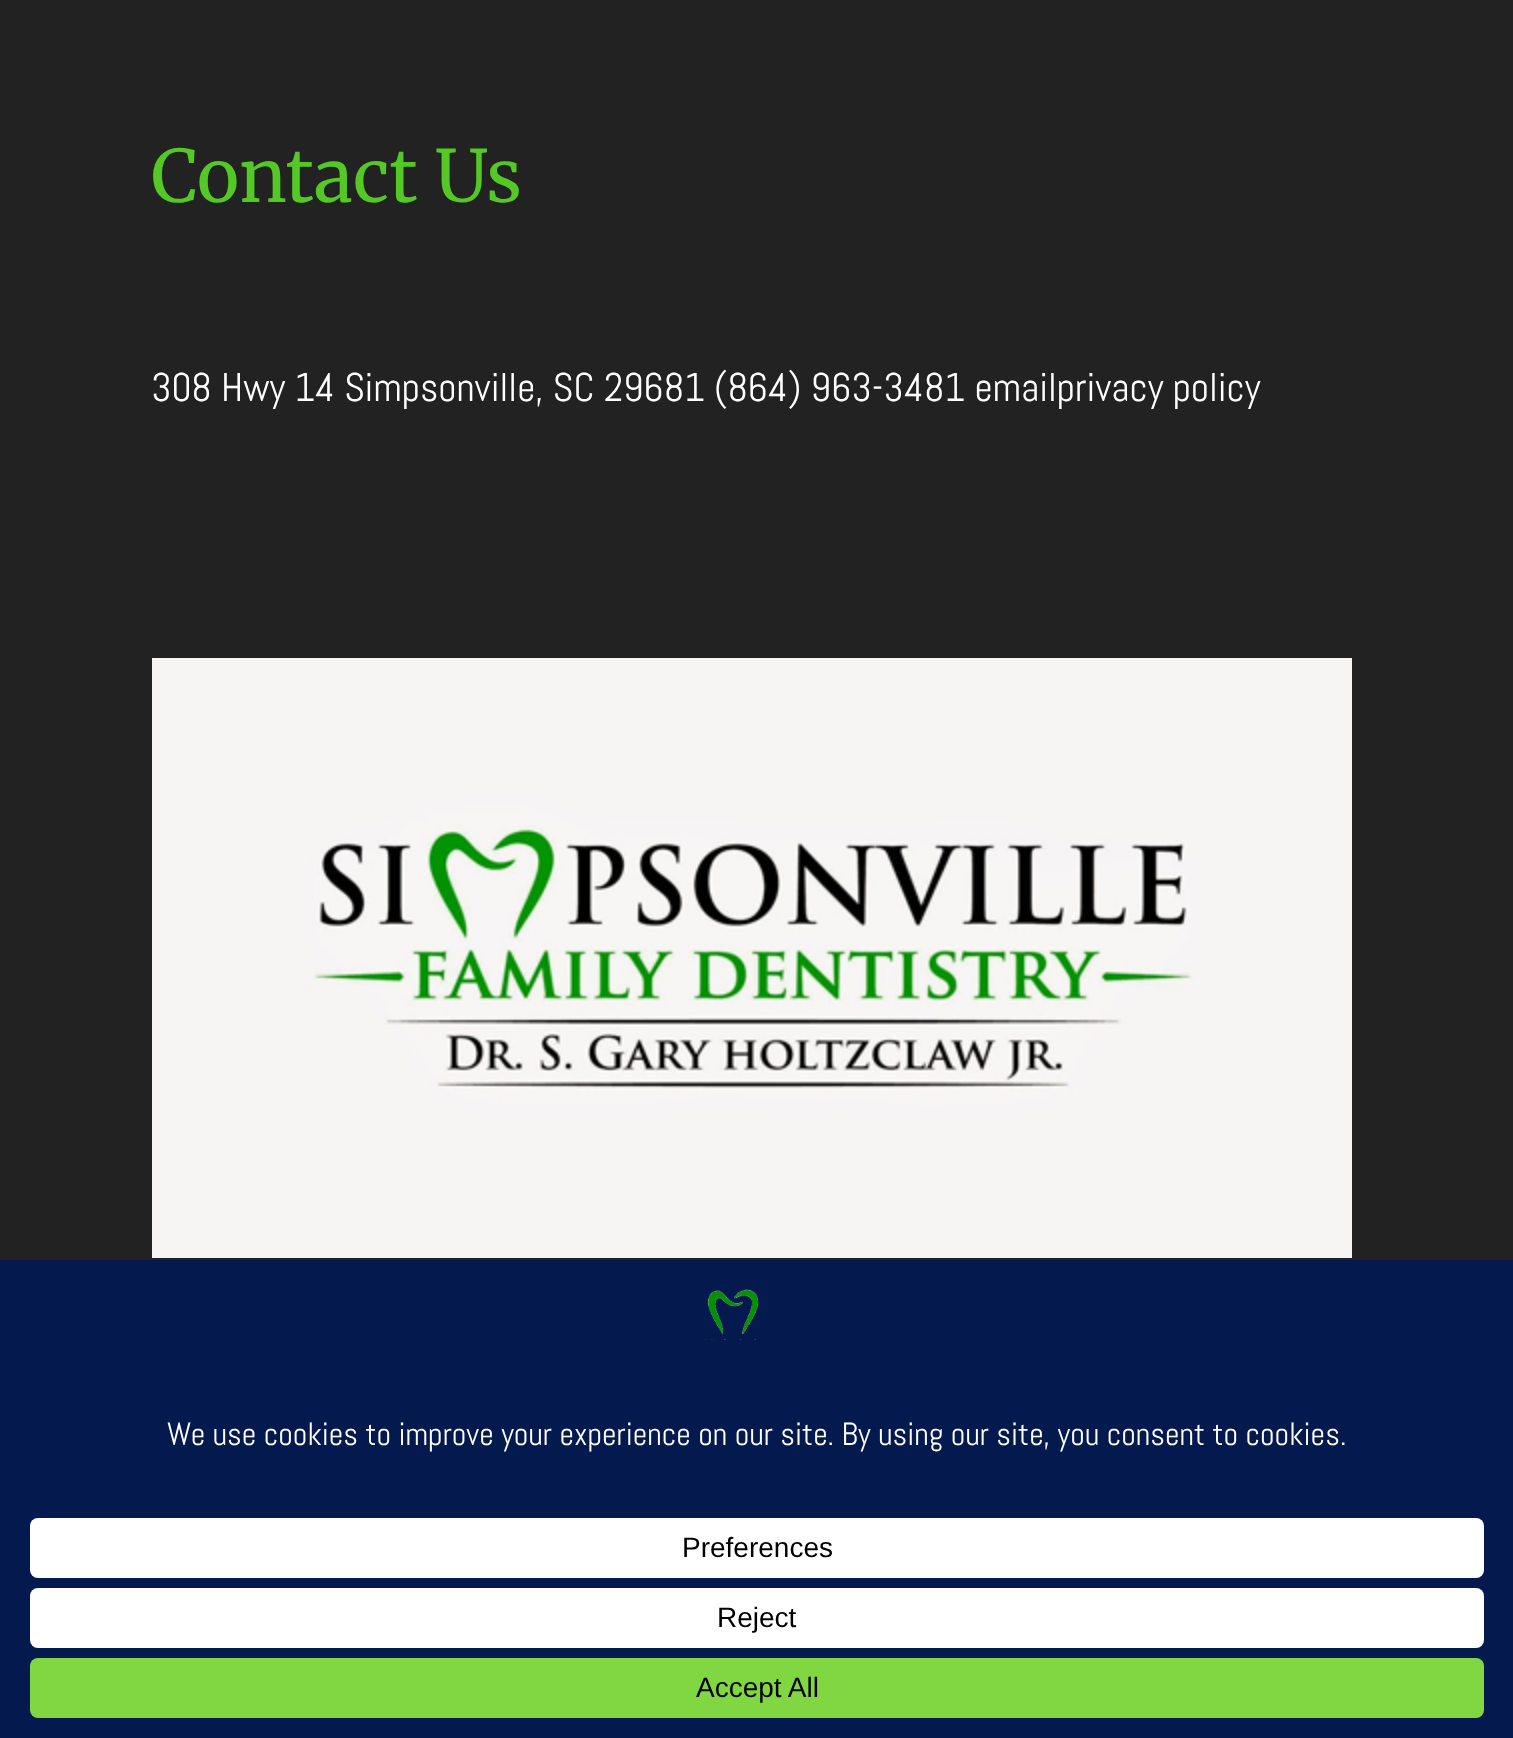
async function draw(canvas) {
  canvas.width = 1513;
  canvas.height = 1738;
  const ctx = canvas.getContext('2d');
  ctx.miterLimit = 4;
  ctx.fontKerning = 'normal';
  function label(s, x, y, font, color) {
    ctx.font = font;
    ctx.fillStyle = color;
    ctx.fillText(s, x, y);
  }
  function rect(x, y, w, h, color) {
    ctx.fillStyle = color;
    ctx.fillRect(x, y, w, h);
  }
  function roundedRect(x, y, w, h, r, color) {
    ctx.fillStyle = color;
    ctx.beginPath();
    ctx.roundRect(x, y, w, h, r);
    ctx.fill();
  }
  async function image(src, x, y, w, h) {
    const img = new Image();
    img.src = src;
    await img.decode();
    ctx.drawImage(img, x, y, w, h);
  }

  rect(0, 0, 1513, 1738, '#222');
  label('Contact Us', 151, 202, '72px Merriweather', '#54c926');
  label('308 Hwy 14 Simpsonville, SC 29681 (864) 963-3481 emailprivacy policy', 151, 401, '40px Abel', '#fff');
  await image('assets/img1.png', 152, 658, 1200, 600);
  rect(0, 1260, 1513, 478, '#04194e');
  await image('assets/img2.png', 704, 1289, 55, 51);
  label('We use cookies to improve your experience on our site. By using our site, you consent to cookies.', 167, 1445, '32px Abel', '#fff');
  roundedRect(30, 1518, 1454, 60, 8, '#fff');
  label('Preferences', 682, 1557, '28px Liberation Sans', '#000');
  roundedRect(30, 1588, 1454, 60, 8, '#fff');
  label('Reject', 717, 1627, '28px Liberation Sans', '#000');
  roundedRect(30, 1658, 1454, 60, 8, '#81d742');
  label('Accept All', 696, 1697, '28px Liberation Sans', '#000');
}

draw(document.querySelector('canvas'));
